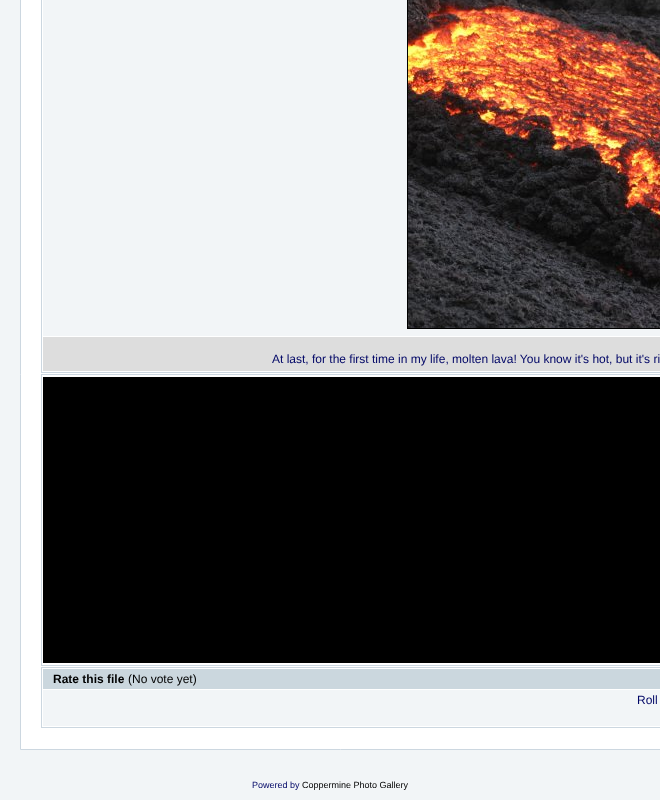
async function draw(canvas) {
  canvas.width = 660;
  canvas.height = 800;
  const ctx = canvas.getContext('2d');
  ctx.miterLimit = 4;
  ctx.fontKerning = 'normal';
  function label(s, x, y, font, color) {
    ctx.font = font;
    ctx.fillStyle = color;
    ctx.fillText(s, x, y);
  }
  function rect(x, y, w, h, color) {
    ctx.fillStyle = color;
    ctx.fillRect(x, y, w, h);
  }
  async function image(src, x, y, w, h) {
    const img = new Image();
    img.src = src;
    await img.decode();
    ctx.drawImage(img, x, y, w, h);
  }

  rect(0, 0, 660, 800, '#f2f5f7');
  ctx.fillStyle = '#fff';
  ctx.beginPath();
  ctx.rect(20.5, -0.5, 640, 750);
  ctx.fill();
  ctx.strokeStyle = '#ccd7e0';
  ctx.stroke();
  ctx.strokeRect(41.5, -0.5, 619, 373);
  rect(43, 0, 617, 336, '#f2f5f7');
  ctx.strokeStyle = '#000';
  ctx.strokeRect(407.5, -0.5, 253, 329);
  await image('assets/img1.png', 408, 0, 252, 328);
  rect(43, 337, 617, 34, '#ddd');
  label('At last, for the first time in my life, molten lava! You know it\'s hot, but it\'s ri', 272, 363, '12px Liberation Sans', '#000666');
  ctx.strokeStyle = '#ccd7e0';
  ctx.strokeRect(41.5, 374.5, 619, 291);
  rect(43, 377, 617, 286, '#000');
  ctx.strokeRect(41.5, 667.5, 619, 60);
  rect(43, 669, 617, 20, '#cbd7de');
  label('Rate this file', 53, 683, 'bold 12px Liberation Sans', '#000');
  label('(No vote yet)', 128, 683, '12px Liberation Sans', '#000');
  rect(43, 690, 617, 36, '#f2f5f7');
  label('Roll', 637, 704, '12px Liberation Sans', '#000666');
  label('Powered by', 252, 788, '9px Liberation Sans', '#000666');
  label('Coppermine Photo Gallery', 302, 788, '9px Liberation Sans', '#000');
}

draw(document.querySelector('canvas'));
